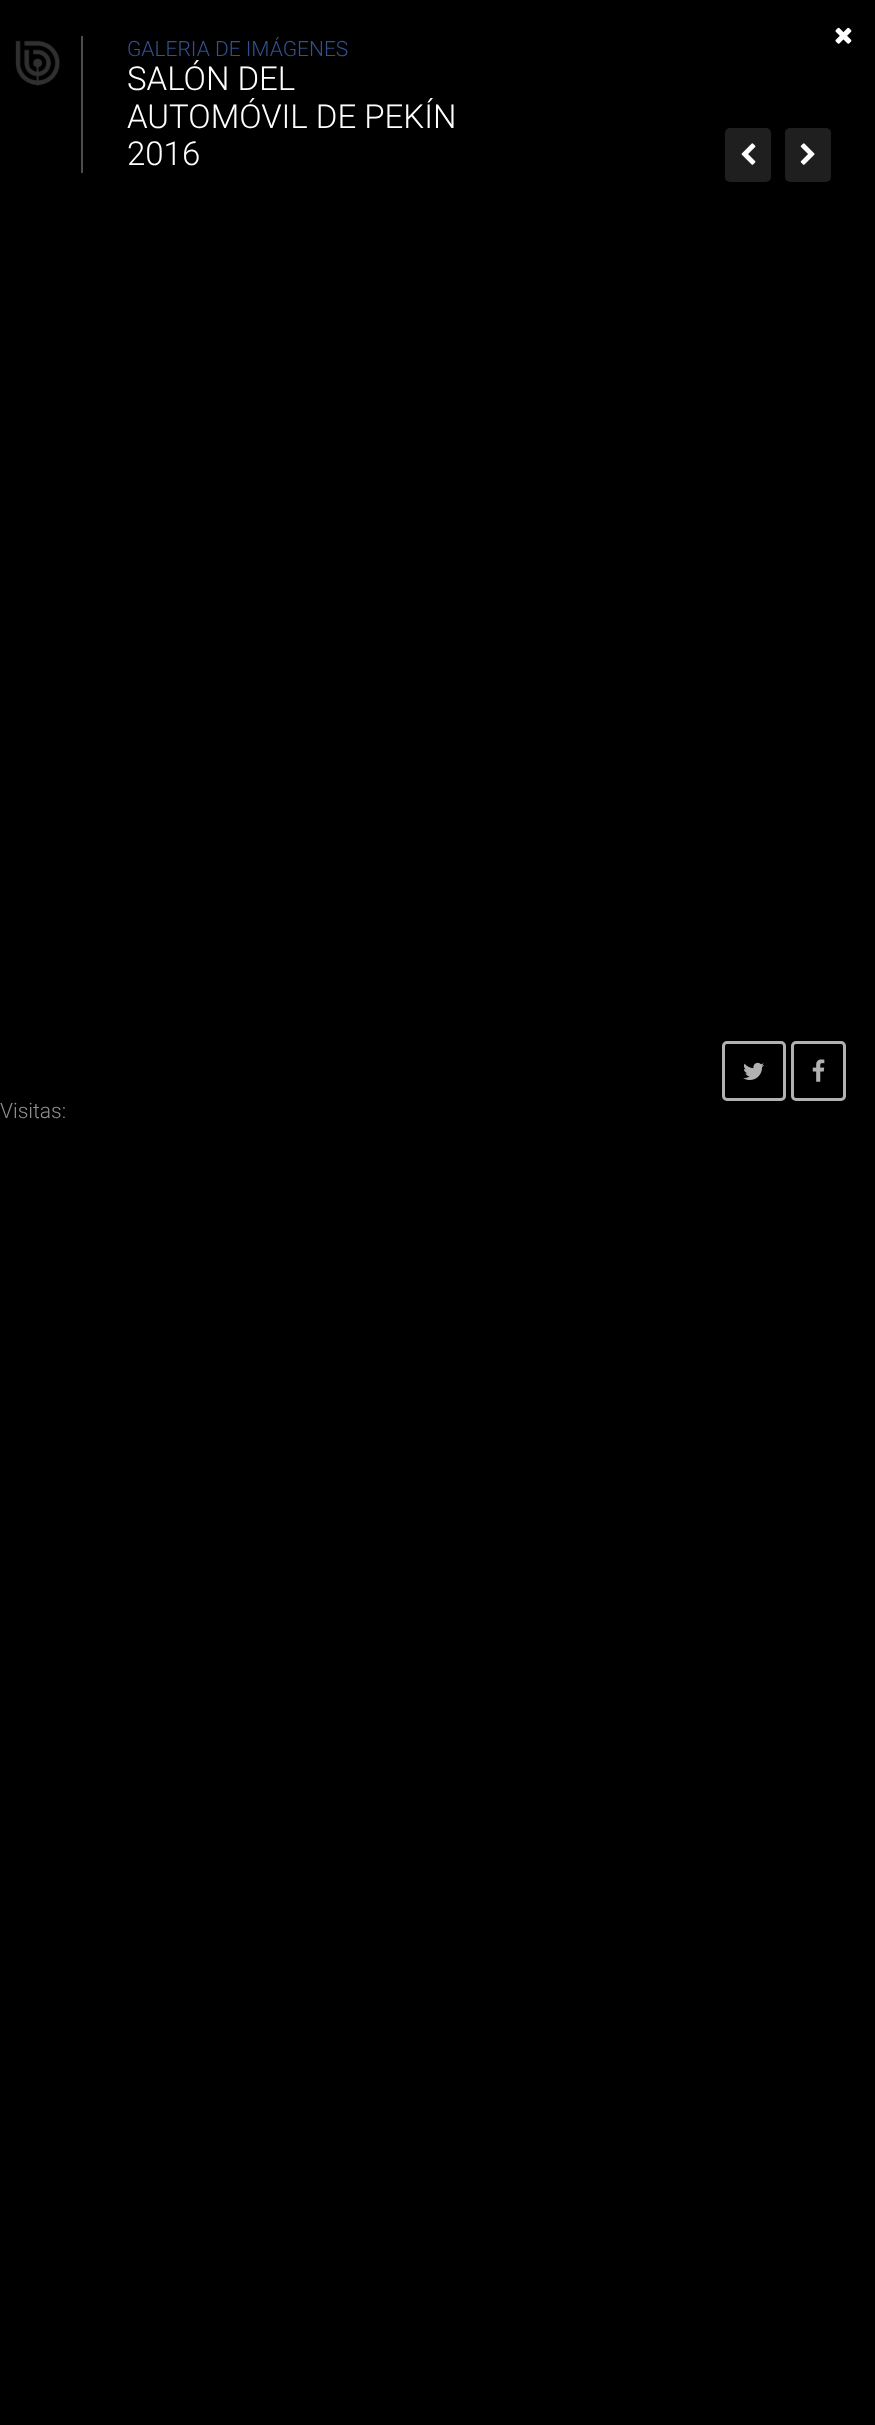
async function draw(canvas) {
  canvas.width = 875;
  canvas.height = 2425;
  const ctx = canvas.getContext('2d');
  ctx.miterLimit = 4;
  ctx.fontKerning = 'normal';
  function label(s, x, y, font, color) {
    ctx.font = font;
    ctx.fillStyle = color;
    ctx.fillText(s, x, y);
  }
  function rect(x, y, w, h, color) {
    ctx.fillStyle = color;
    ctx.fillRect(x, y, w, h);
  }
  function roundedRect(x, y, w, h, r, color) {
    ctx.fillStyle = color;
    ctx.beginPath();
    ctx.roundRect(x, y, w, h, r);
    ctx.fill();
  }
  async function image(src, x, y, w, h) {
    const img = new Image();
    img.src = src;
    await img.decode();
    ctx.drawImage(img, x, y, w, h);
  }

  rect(0, 0, 875, 2425, '#000');
  await image('assets/img1.png', 15, 40, 45, 46);
  rect(81, 36, 2, 137, '#4d4d4d');
  label('GALERIA DE IMÁGENES', 127, 56, '300 21px Roboto', '#34508d');
  label('SALÓN DEL', 127, 90, '300 33px Roboto', '#fff');
  label('AUTOMÓVIL DE PEKÍN', 127, 128, '300 33px Roboto', '#fff');
  label('2016', 127, 165, '300 33px Roboto', '#fff');
  await image('assets/img2.png', 835, 27, 17, 17);
  roundedRect(725, 128, 46, 54, 5, '#1f1f1f');
  await image('assets/img3.png', 741, 143, 15, 22);
  roundedRect(785, 128, 46, 54, 5, '#1f1f1f');
  await image('assets/img4.png', 800, 143, 15, 22);
  ctx.beginPath();
  ctx.roundRect(723.5, 1042.5, 61, 57, 3.5);
  ctx.strokeStyle = '#b1b1b1';
  ctx.lineWidth = 3;
  ctx.stroke();
  await image('assets/img5.png', 743, 1062, 21, 18);
  ctx.beginPath();
  ctx.roundRect(792.5, 1042.5, 52, 57, 3.5);
  ctx.stroke();
  await image('assets/img6.png', 812, 1059, 13, 23);
  label('Visitas:', 0, 1118, '300 21px Roboto', '#8f8f8f');
}

draw(document.querySelector('canvas'));
